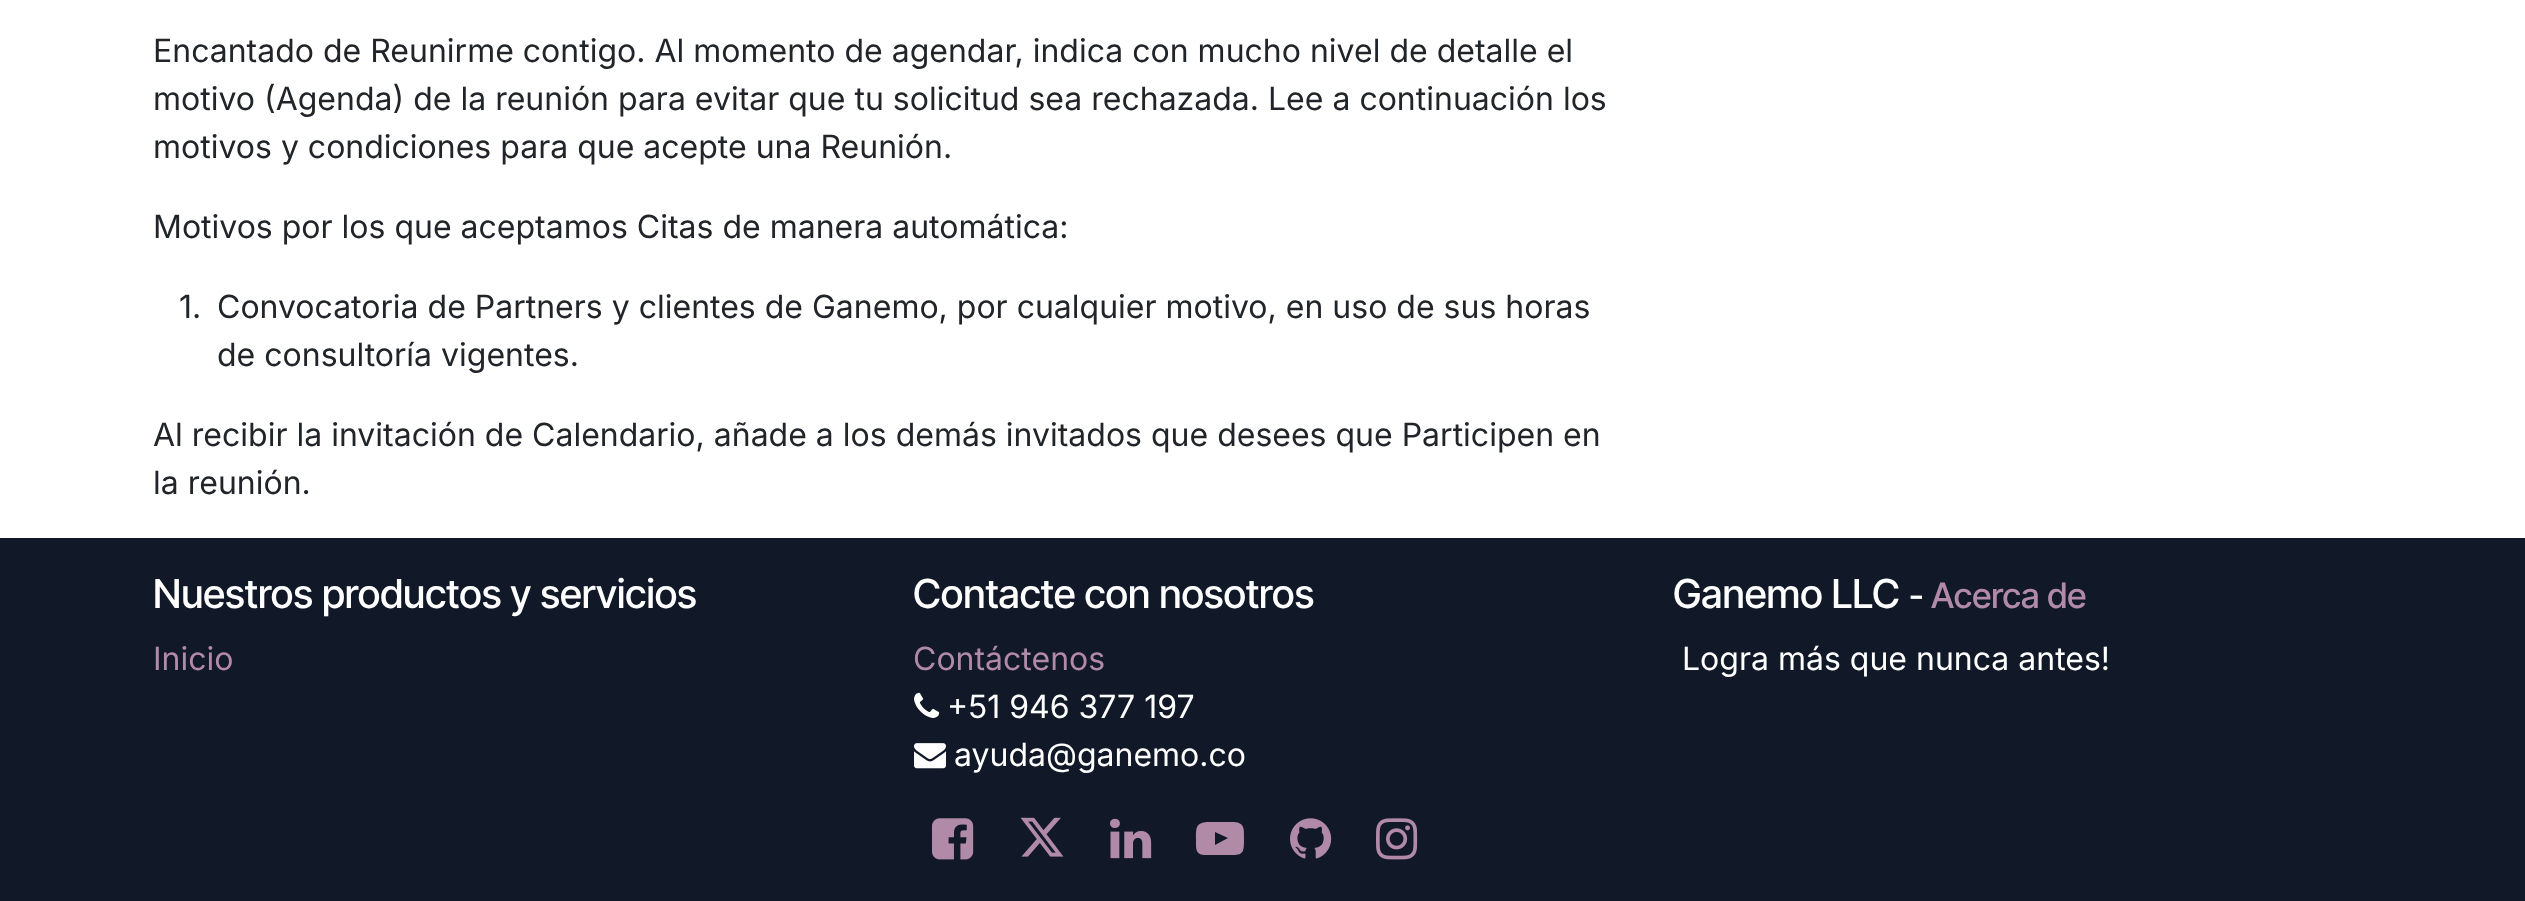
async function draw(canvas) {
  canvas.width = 2525;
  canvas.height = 901;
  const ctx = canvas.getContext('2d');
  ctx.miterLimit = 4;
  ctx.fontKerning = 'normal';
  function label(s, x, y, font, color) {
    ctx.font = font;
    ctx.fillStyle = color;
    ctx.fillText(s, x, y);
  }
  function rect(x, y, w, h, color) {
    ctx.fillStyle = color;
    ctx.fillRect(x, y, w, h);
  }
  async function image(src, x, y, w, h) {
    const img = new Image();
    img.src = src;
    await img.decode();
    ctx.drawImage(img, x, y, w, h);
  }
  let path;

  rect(0, 0, 2525, 901, '#fff');
  label('Encantado de Reunirme contigo. Al momento de agendar, indica con mucho nivel de detalle el', 153, 62, '32px Inter', '#212529');
  label('motivo (Agenda) de la reunión para evitar que tu solicitud sea rechazada. Lee a continuación los', 153, 110, '32px Inter', '#212529');
  label('motivos y condiciones para que acepte una Reunión.', 153, 158, '32px Inter', '#212529');
  label('Motivos por los que aceptamos Citas de manera automática:', 153, 238, '32px Inter', '#212529');
  label('1.', 179, 318, '32px Inter', '#212529');
  label('Convocatoria de Partners y clientes de Ganemo, por cualquier motivo, en uso de sus horas', 217, 318, '32px Inter', '#212529');
  label('de consultoría vigentes.', 217, 366, '32px Inter', '#212529');
  label('Al recibir la invitación de Calendario, añade a los demás invitados que desees que Participen en', 153, 446, '32px Inter', '#212529');
  label('la reunión.', 153, 494, '32px Inter', '#212529');
  rect(0, 538, 2525, 363, '#111827');
  label('Nuestros productos y servicios', 153, 608, '500 40px Inter Tight', '#fff');
  label('Inicio', 153, 670, '32px Inter', '#b18aa7');
  label('Contacte con nosotros', 913, 608, '500 40px Inter Tight', '#fff');
  label('Contáctenos', 913, 670, '32px Inter', '#b18aa7');
  await image('assets/img1.png', 914, 692, 26, 26);
  label('+51 946 377 197', 947, 718, '32px Inter', '#fff');
  await image('assets/img2.png', 914, 743, 32, 26);
  label('ayuda@ganemo.co', 954, 766, '32px Inter', '#fff');
  await image('assets/img3.png', 932, 818, 42, 42);
  await image('assets/img4.png', 1020, 817, 44, 40);
  await image('assets/img5.png', 1110, 818, 42, 41);
  ctx.fillStyle = '#b18aa7';
  path = new Path2D('M1215 845L1228 838L1215 832ZM1220 822H1234C1245 823 1244 829 1244 839C1244 851 1244 855 1233 855H1206C1195 855 1196 849 1196 839C1196 827 1196 823 1207 822Z');
  ctx.fill(path);
  await image('assets/img6.png', 1290, 818, 42, 41);
  await image('assets/img7.png', 1376, 818, 42, 42);
  label('Ganemo LLC', 1673, 608, '500 40px Inter Tight', '#fff');
  label('-', 1909, 608, '500 35px Inter Tight', '#fff');
  label('Acerca de', 1931, 608, '500 35px Inter Tight', '#b18aa7');
  label('Logra más que nunca antes!', 1682, 670, '32px Inter', '#fff');
}

draw(document.querySelector('canvas'));
